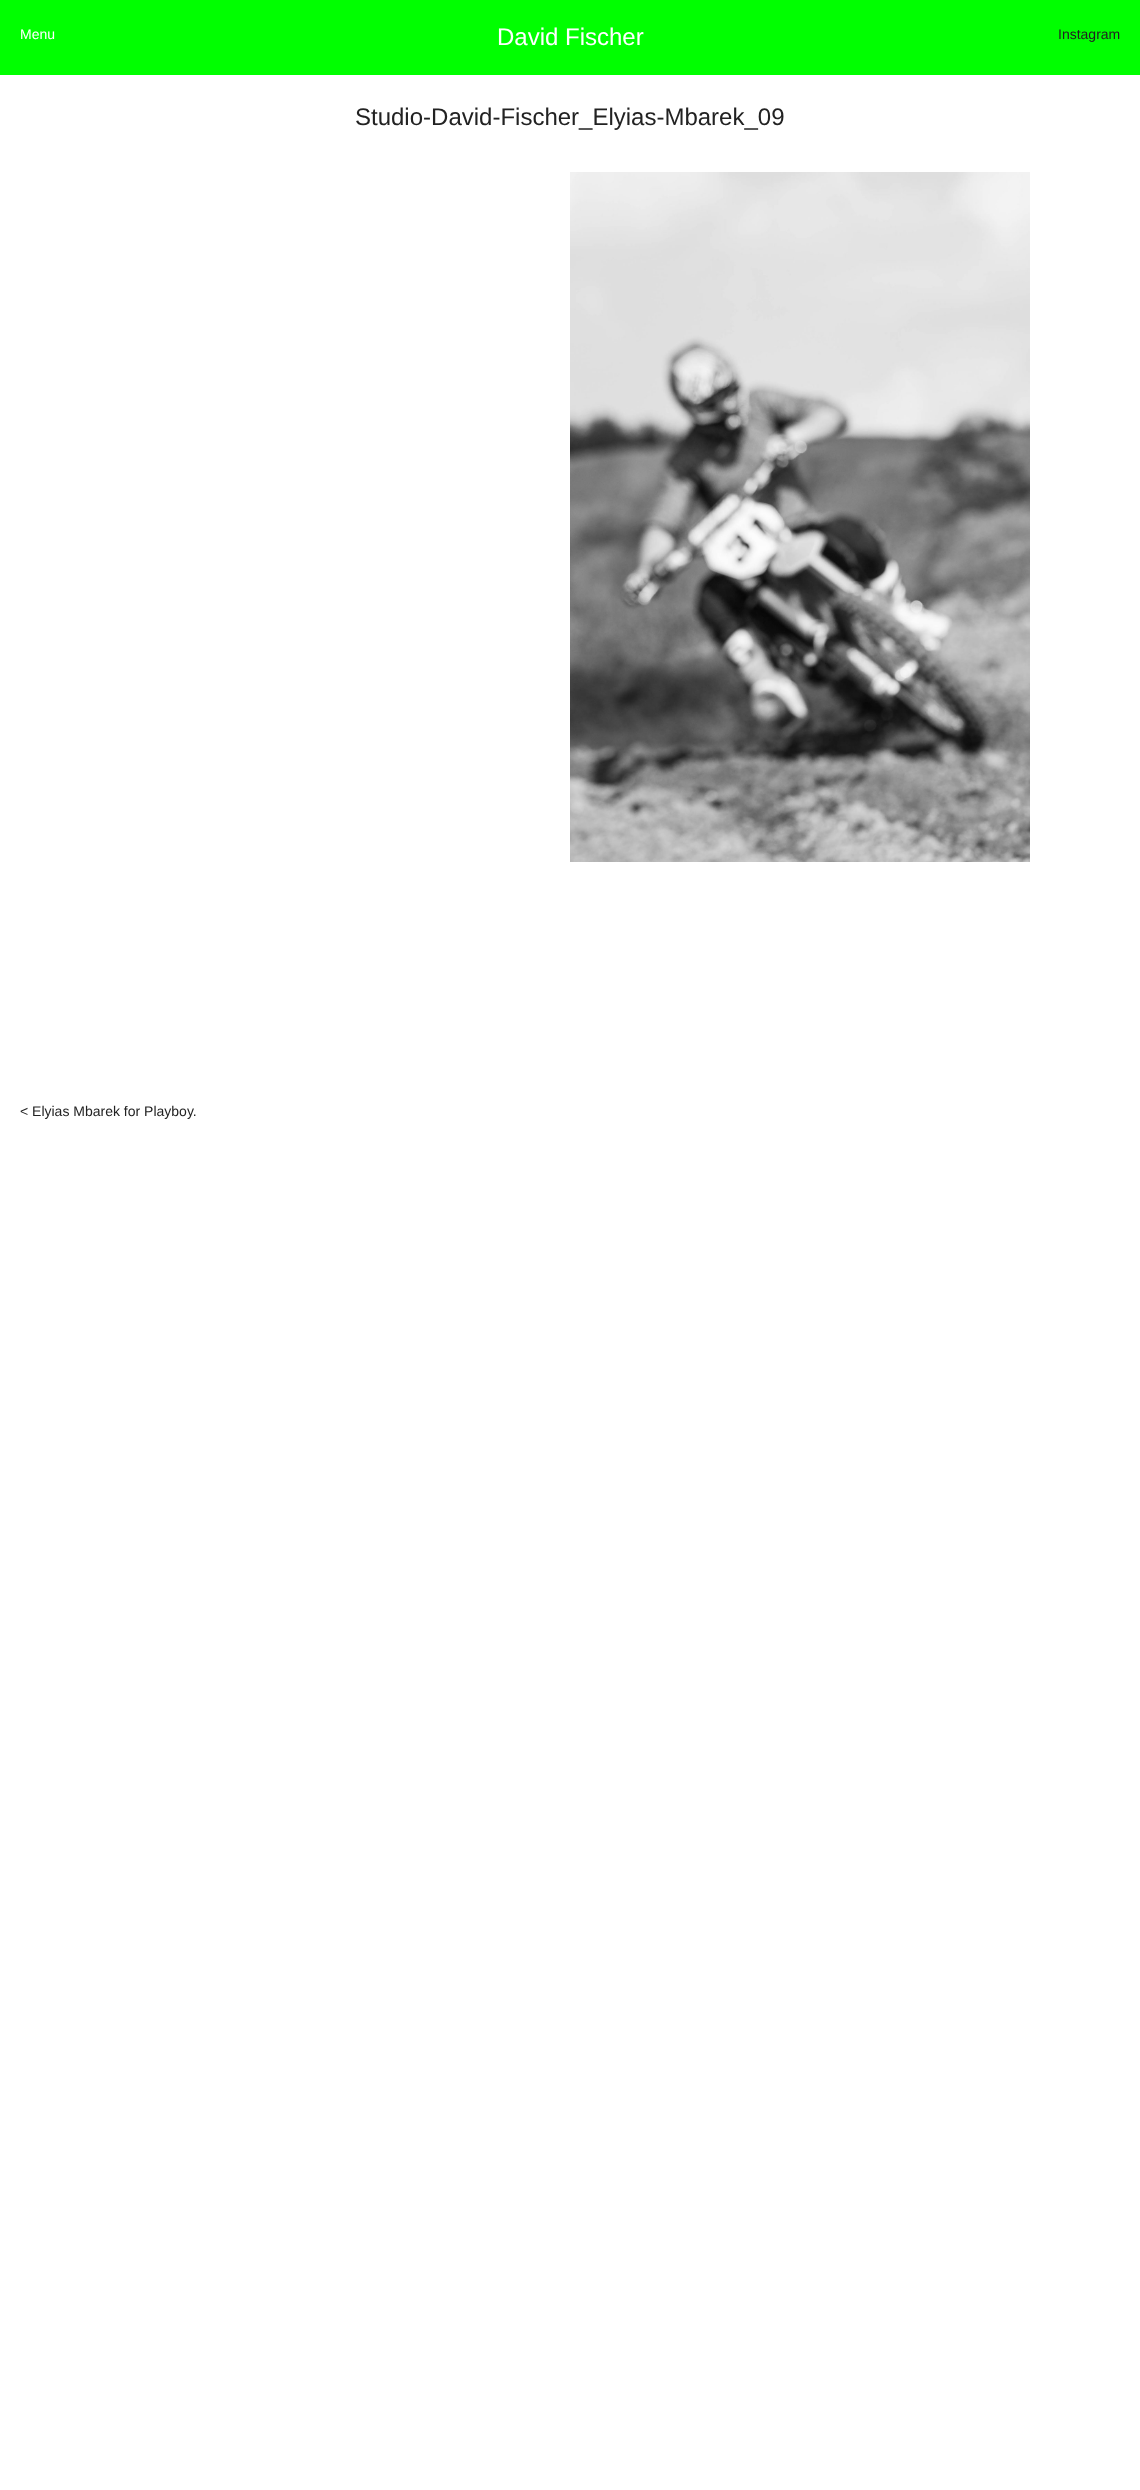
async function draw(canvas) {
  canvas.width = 1140;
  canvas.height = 2490;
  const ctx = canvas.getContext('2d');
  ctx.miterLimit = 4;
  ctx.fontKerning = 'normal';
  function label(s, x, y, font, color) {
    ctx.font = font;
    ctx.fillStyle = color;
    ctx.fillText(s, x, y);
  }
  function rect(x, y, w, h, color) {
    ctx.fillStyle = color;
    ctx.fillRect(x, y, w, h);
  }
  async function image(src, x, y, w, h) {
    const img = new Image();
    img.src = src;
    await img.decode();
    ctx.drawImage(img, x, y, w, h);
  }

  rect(0, 0, 1140, 2490, '#fff');
  rect(0, 0, 1140, 75, '#0f0');
  label('Menu', 20, 39, '14px Liberation Sans', '#fff');
  label('David Fischer', 497, 45, '24px Liberation Sans', '#fff');
  label('Instagram', 1058, 39, '14px Liberation Sans', '#222');
  label('Studio-David-Fischer_Elyias-Mbarek_09', 355, 125, '24px Liberation Sans', '#222');
  await image('assets/img1.png', 570, 172, 460, 690);
  label('< Elyias Mbarek for Playboy.', 20, 1116, '14px Liberation Sans', '#222');
}

draw(document.querySelector('canvas'));
